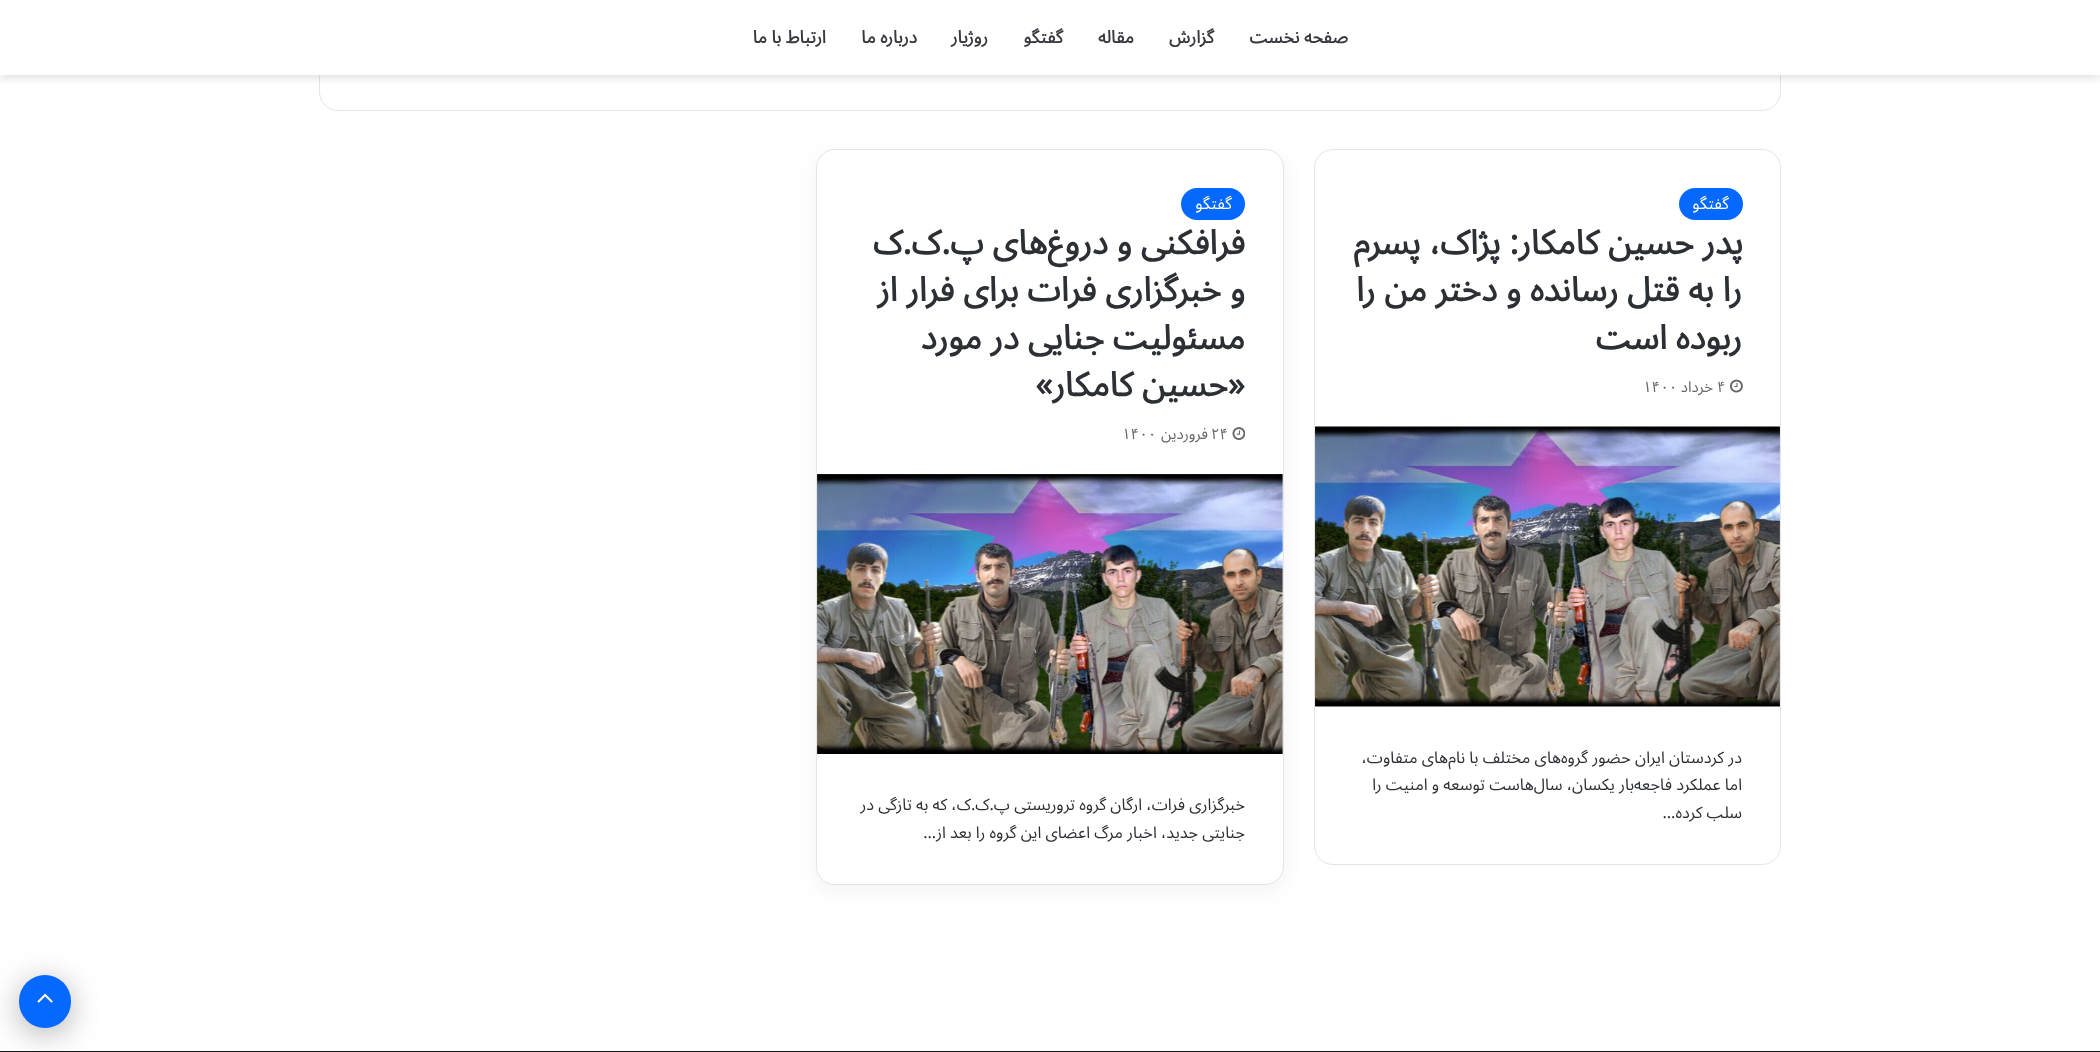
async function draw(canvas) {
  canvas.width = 2100;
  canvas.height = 1052;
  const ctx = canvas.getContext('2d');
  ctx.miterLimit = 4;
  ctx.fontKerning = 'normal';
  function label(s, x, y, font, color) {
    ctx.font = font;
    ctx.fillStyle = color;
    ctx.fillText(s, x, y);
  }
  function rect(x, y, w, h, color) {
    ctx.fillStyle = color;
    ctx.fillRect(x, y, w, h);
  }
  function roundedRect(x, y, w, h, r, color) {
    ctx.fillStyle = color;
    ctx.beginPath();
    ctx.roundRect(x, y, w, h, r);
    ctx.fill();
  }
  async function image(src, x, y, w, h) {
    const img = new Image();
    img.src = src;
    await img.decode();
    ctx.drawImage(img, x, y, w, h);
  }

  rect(0, 0, 2100, 1052, '#fff');
  ctx.beginPath();
  ctx.roundRect(319.5, -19.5, 1461, 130, 18.5);
  ctx.strokeStyle = '#e5e5e5';
  ctx.stroke();
  ctx.save();
  ctx.beginPath();
  ctx.rect(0, 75, 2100, 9);
  ctx.clip();
  ctx.fillStyle = '#63636333';
  ctx.filter = 'blur(5px)';
  ctx.beginPath();
  ctx.rect(0, 3, 2100, 75);
  ctx.fill();
  ctx.filter = 'none';
  ctx.restore();
  rect(319, 0, 1462, 75, '#fffffff2');
  ctx.direction = 'rtl';
  label('صفحه نخست', 1348, 43, 'bold 17.5px Noto Sans Arabic', '#37393e');
  label('گزارش', 1214, 43, 'bold 17.5px Noto Sans Arabic', '#37393e');
  label('مقاله', 1134, 43, 'bold 17.5px Noto Sans Arabic', '#37393e');
  label('گفتگو', 1063, 43, 'bold 17.5px Noto Sans Arabic', '#37393e');
  label('روژیار', 988, 43, 'bold 17.5px Noto Sans Arabic', '#37393e');
  label('درباره ما', 917, 43, 'bold 17.5px Noto Sans Arabic', '#37393e');
  label('ارتباط با ما', 826, 43, 'bold 17.5px Noto Sans Arabic', '#37393e');
  ctx.beginPath();
  ctx.roundRect(1314.5, 149.5, 466, 715, 18.5);
  ctx.stroke();
  roundedRect(1679, 188, 64, 32, 16, '#0669ff');
  label('گفتگو', 1729, 209, '16.25px Noto Sans Arabic', '#fff');
  label('پدر حسین کامکار: پژاک، پسرم', 1743, 254, 'bold 33.75px Noto Sans Arabic', '#2c2f34');
  label('را به قتل رسانده و دختر من را', 1742, 301, 'bold 33.75px Noto Sans Arabic', '#2c2f34');
  label('ربوده است', 1742, 349, 'bold 33.75px Noto Sans Arabic', '#2c2f34');
  await image('assets/img1.png', 1730, 379, 13, 14);
  ctx.direction = 'ltr';
  label('۴', 1717, 392, '15px Noto Sans Arabic', '#666');
  ctx.direction = 'rtl';
  label('خرداد', 1713, 392, '15px Noto Sans Arabic', '#666');
  ctx.direction = 'ltr';
  label('۱۴۰۰', 1643, 392, '15px Noto Sans Arabic', '#666');
  await image('assets/img2.png', 1315, 426, 465, 281);
  ctx.direction = 'rtl';
  label('در کردستان ایران حضور گروه‌های مختلف با نام‌های متفاوت،', 1742, 763, '16.25px Noto Sans Arabic', '#2c2f34');
  label('اما عملکرد فاجعه‌بار یکسان، سال‌هاست توسعه و امنیت را', 1742, 790, '16.25px Noto Sans Arabic', '#2c2f34');
  label('سلب کرده…', 1742, 818, '16.25px Noto Sans Arabic', '#2c2f34');
  ctx.fillStyle = '#0000000d';
  ctx.filter = 'blur(9.5px)';
  ctx.beginPath();
  ctx.roundRect(816, 155, 468, 736, 19);
  ctx.fill();
  ctx.filter = 'none';
  ctx.fillStyle = '#fff';
  ctx.beginPath();
  ctx.roundRect(816.5, 149.5, 467, 735, 18.5);
  ctx.fill();
  ctx.stroke();
  roundedRect(1181, 188, 64, 32, 16, '#0669ff');
  label('گفتگو', 1232, 209, '16.25px Noto Sans Arabic', '#fff');
  label('فرافکنی و دروغ‌های پ.ک.ک', 1245, 254, 'bold 33.75px Noto Sans Arabic', '#2c2f34');
  label('و خبرگزاری فرات برای فرار از', 1245, 301, 'bold 33.75px Noto Sans Arabic', '#2c2f34');
  label('مسئولیت جنایی در مورد', 1245, 349, 'bold 33.75px Noto Sans Arabic', '#2c2f34');
  label('«حسین کامکار»', 1245, 396, 'bold 33.75px Noto Sans Arabic', '#2c2f34');
  await image('assets/img3.png', 1232, 427, 13, 13);
  ctx.direction = 'ltr';
  label('۲۴', 1211, 439, '15px Noto Sans Arabic', '#666');
  ctx.direction = 'rtl';
  label('فروردین', 1208, 439, '15px Noto Sans Arabic', '#666');
  ctx.direction = 'ltr';
  label('۱۴۰۰', 1122, 439, '15px Noto Sans Arabic', '#666');
  await image('assets/img4.png', 817, 474, 466, 280);
  ctx.direction = 'rtl';
  label('خبرگزاری فرات، ارگان گروه تروریستی پ.ک.ک، که به تازگی در', 1245, 810, '16.25px Noto Sans Arabic', '#2c2f34');
  label('جنایتی جدید، اخبار مرگ اعضای این گروه را بعد از…', 1245, 838, '16.25px Noto Sans Arabic', '#2c2f34');
  rect(0, 1051, 2100, 1, '#161619');
  ctx.fillStyle = '#0000004d';
  ctx.filter = 'blur(15.5px)';
  ctx.beginPath();
  ctx.roundRect(19, 981, 52, 53, 26);
  ctx.fill();
  ctx.filter = 'none';
  roundedRect(19, 975, 52, 53, 26, '#0669ff');
  await image('assets/img5.png', 37, 993, 16, 10);
}

draw(document.querySelector('canvas'));
